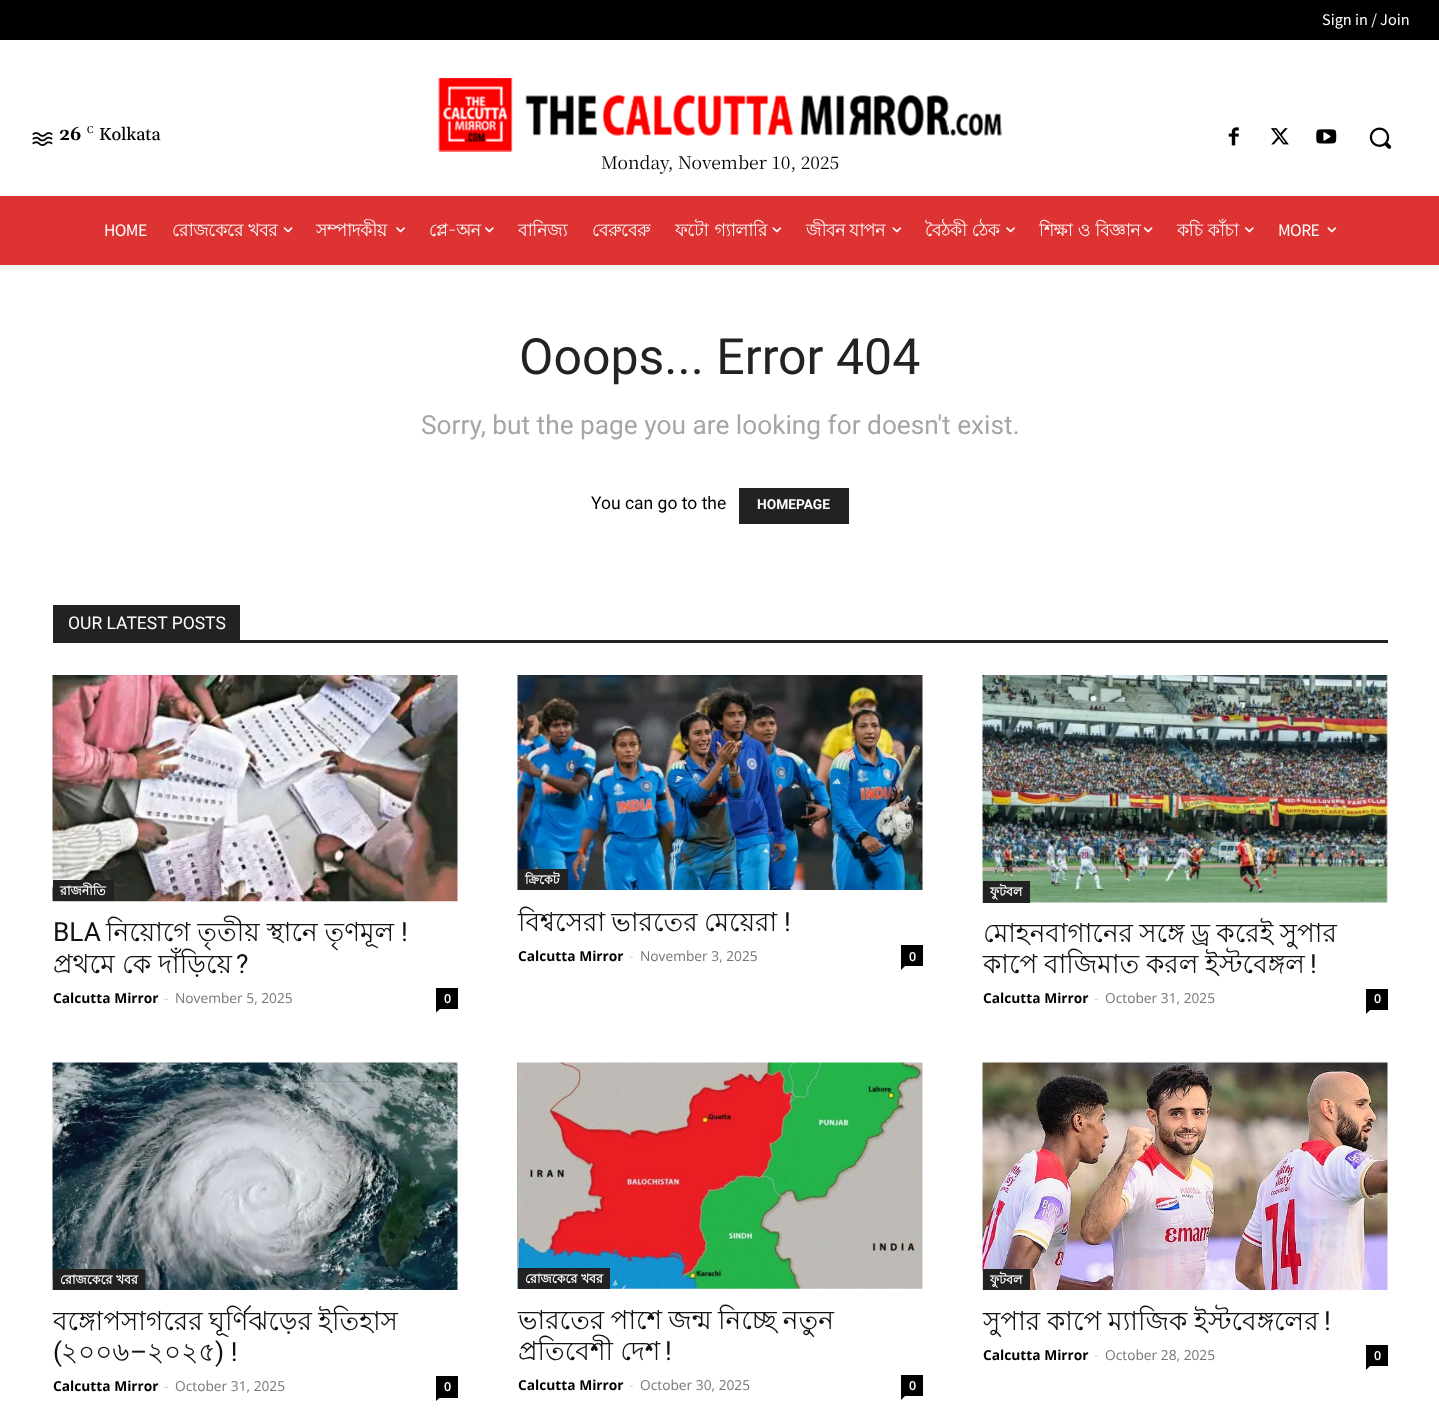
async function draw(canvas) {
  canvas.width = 1439;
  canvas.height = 1417;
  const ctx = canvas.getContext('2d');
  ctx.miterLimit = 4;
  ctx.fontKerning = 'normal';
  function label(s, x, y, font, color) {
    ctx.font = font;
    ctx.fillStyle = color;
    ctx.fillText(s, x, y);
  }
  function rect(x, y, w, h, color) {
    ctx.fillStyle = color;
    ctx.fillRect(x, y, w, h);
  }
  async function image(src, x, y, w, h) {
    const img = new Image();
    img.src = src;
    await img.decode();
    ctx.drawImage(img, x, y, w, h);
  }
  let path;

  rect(0, 0, 1439, 1417, '#fff');
  rect(0, 0, 1439, 40, '#000');
  label('Sign in / Join', 1322, 25, '16.25px Source Sans Pro', '#fff');
  await image('assets/img1.png', 32, 132, 21, 14);
  label('26', 59, 140, 'bold 17.5px Gelasio', '#000');
  label('C', 87, 133, '10px Gelasio', '#000');
  label('Kolkata', 99, 140, '500 17.5px Gelasio', '#000');
  await image('assets/img2.png', 1228, 127, 11, 19);
  await image('assets/img3.png', 1271, 128, 18, 17);
  await image('assets/img4.png', 1316, 129, 21, 15);
  await image('assets/img5.png', 1369, 127, 23, 22);
  await image('assets/img6.png', 438, 78, 564, 74);
  label('Monday, November 10, 2025', 601, 169, '200 17.5px Noto Serif TC', '#000');
  rect(0, 196, 1439, 69, '#d33');
  ctx.save();
  ctx.beginPath();
  ctx.rect(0, 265, 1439, 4);
  ctx.clip();
  ctx.fillStyle = '#0000000f';
  ctx.filter = 'blur(2.5px)';
  ctx.beginPath();
  ctx.rect(0, 199, 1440, 69);
  ctx.fill();
  ctx.filter = 'none';
  ctx.restore();
  ctx.letterSpacing = '-0.6px';
  label('HOME', 104, 236, '17.5px Source Sans Pro', '#fff');
  ctx.wordSpacing = '1px';
  label('রোজকেরে খবর', 172, 236, '17.5px Lohit Bengali', '#fff');
  await image('assets/img7.png', 283, 227, 10, 6);
  ctx.wordSpacing = '0px';
  label('সম্পাদকীয়', 316, 236, '17.5px Lohit Bengali', '#fff');
  await image('assets/img8.png', 396, 227, 9, 6);
  label('প্লে-অন', 429, 236, '17.5px Lohit Bengali', '#fff');
  await image('assets/img9.png', 485, 227, 9, 6);
  label('বানিজ্য', 518, 236, '17.5px Lohit Bengali', '#fff');
  label('বেরুবেরু', 592, 236, '17.5px Lohit Bengali', '#fff');
  ctx.wordSpacing = '2px';
  label('ফটো গ্যালারি', 675, 236, '17.5px Lohit Bengali', '#fff');
  await image('assets/img10.png', 772, 227, 10, 6);
  ctx.wordSpacing = '0px';
  label('জীবন যাপন', 806, 236, '17.5px Lohit Bengali', '#fff');
  await image('assets/img10.png', 892, 227, 10, 6);
  ctx.wordSpacing = '1px';
  label('বৈঠকী ঠেক', 925, 236, '17.5px Lohit Bengali', '#fff');
  await image('assets/img8.png', 1006, 227, 9, 6);
  label('শিক্ষা ও বিজ্ঞান', 1039, 236, '17.5px Lohit Bengali', '#fff');
  await image('assets/img7.png', 1143, 227, 10, 6);
  label('কচি কাঁচা', 1177, 236, '17.5px Lohit Bengali', '#fff');
  await image('assets/img9.png', 1245, 227, 9, 6);
  ctx.wordSpacing = '0px';
  label('MORE', 1278, 236, '17.5px Source Sans Pro', '#fff');
  await image('assets/img10.png', 1327, 227, 10, 6);
  ctx.letterSpacing = '0px';
  label('Ooops... Error 404', 519, 374, '50px Roboto', '#222');
  label('Sorry, but the page you are looking for doesn\'t exist.', 421, 434, '26.25px Roboto', '#a6a6a6');
  label('You can go to the', 591, 509, '17.5px Roboto', '#000');
  rect(739, 488, 110, 36, '#222');
  label('HOMEPAGE', 757, 509, 'bold 13.75px Roboto', '#fff');
  rect(53, 640, 1335, 3, '#222');
  rect(53, 605, 187, 35, '#222');
  label('OUR LATEST POSTS', 68, 629, '17.5px Roboto', '#fff');
  await image('assets/img11.png', 52, 675, 406, 227);
  rect(53, 880, 61, 21, '#222');
  label('রাজনীতি', 60, 895, 'bold 12.5px Lohit Bengali', '#fff');
  label('BLA', 53, 941, '26.25px Roboto', '#111');
  ctx.wordSpacing = '-0.5px';
  label('নিয়োগে তৃতীয় স্থানে তৃণমূল', 106, 941, '26.25px Lohit Bengali', '#111');
  ctx.wordSpacing = '0px';
  label('!', 401, 941, '26.25px Roboto', '#111');
  label('প্রথমে কে দাঁড়িয়ে', 53, 973, '26.25px Lohit Bengali', '#111');
  label('?', 236, 973, '26.25px Roboto', '#111');
  label('Calcutta Mirror', 53, 1003, 'bold 13.75px Open Sans', '#000');
  label('-', 164, 1003, '13.75px Open Sans', '#ccc');
  label('November 5, 2025', 175, 1003, '13.75px Open Sans', '#767676');
  rect(436, 988, 22, 21, '#000');
  label('0', 444, 1003, '600 12.5px Open Sans', '#fff');
  ctx.fillStyle = '#000';
  path = new Path2D('M436 1009H440L436 1012.5Z');
  ctx.fill(path);
  await image('assets/img12.png', 517, 675, 406, 215);
  rect(518, 869, 50, 21, '#222');
  label('ক্রিকেট', 525, 884, 'bold 12.5px Lohit Bengali', '#fff');
  ctx.wordSpacing = '-1px';
  label('বিশ্বসেরা ভারতের মেয়েরা', 518, 931, '26.25px Lohit Bengali', '#111');
  ctx.wordSpacing = '0px';
  label('!', 784, 931, '26.25px Roboto', '#111');
  label('Calcutta Mirror', 518, 961, 'bold 13.75px Open Sans', '#000');
  label('-', 629, 961, '13.75px Open Sans', '#ccc');
  label('November 3, 2025', 640, 961, '13.75px Open Sans', '#767676');
  rect(901, 945, 22, 21, '#000');
  label('0', 909, 961, '600 12.5px Open Sans', '#fff');
  ctx.fillStyle = '#000';
  path = new Path2D('M901 966H905L901 970Z');
  ctx.fill(path);
  await image('assets/img13.png', 982, 675, 406, 228);
  rect(983, 881, 47, 22, '#222');
  label('ফুটবল', 990, 896, 'bold 12.5px Lohit Bengali', '#fff');
  ctx.wordSpacing = '-1px';
  label('মোহনবাগানের সঙ্গে ড্র করেই সুপার', 983, 942, '26.25px Lohit Bengali', '#111');
  ctx.wordSpacing = '-0.5px';
  label('কাপে বাজিমাত করল ইস্টবেঙ্গল', 983, 973, '26.25px Lohit Bengali', '#111');
  ctx.wordSpacing = '0px';
  label('!', 1310, 973, '26.25px Roboto', '#111');
  label('Calcutta Mirror', 983, 1003, 'bold 13.75px Open Sans', '#000');
  label('-', 1094, 1003, '13.75px Open Sans', '#ccc');
  label('October 31, 2025', 1105, 1003, '13.75px Open Sans', '#767676');
  rect(1366, 989, 22, 21, '#000');
  label('0', 1374, 1003, '600 12.5px Open Sans', '#fff');
  ctx.fillStyle = '#000';
  path = new Path2D('M1366 1010H1370L1366 1014Z');
  ctx.fill(path);
  await image('assets/img14.png', 52, 1062, 406, 228);
  rect(53, 1269, 92, 21, '#222');
  label('রোজকেরে খবর', 60, 1284, 'bold 12.5px Lohit Bengali', '#fff');
  ctx.wordSpacing = '-1px';
  label('বঙ্গোপসাগরের ঘূর্ণিঝড়ের ইতিহাস', 53, 1330, '26.25px Lohit Bengali', '#111');
  ctx.wordSpacing = '0px';
  label('(', 53, 1361, '26.25px Roboto', '#111');
  label('২০০৬', 61, 1361, '26.25px Lohit Bengali', '#111');
  label('–', 130, 1361, '26.25px Roboto', '#111');
  label('২০২৫', 147, 1361, '26.25px Lohit Bengali', '#111');
  label(') !', 215, 1361, '26.25px Roboto', '#111');
  label('Calcutta Mirror', 53, 1391, 'bold 13.75px Open Sans', '#000');
  label('-', 164, 1391, '13.75px Open Sans', '#ccc');
  label('October 31, 2025', 175, 1391, '13.75px Open Sans', '#767676');
  rect(436, 1376, 22, 22, '#000');
  label('0', 444, 1391, '600 12.5px Open Sans', '#fff');
  ctx.fillStyle = '#000';
  path = new Path2D('M436 1397.5H440L436 1401Z');
  ctx.fill(path);
  await image('assets/img15.png', 517, 1062, 406, 227);
  rect(518, 1268, 92, 21, '#222');
  label('রোজকেরে খবর', 525, 1283, 'bold 12.5px Lohit Bengali', '#fff');
  ctx.wordSpacing = '-1px';
  label('ভারতের পাশে জন্ম নিচ্ছে নতুন', 518, 1329, '26.25px Lohit Bengali', '#111');
  ctx.wordSpacing = '0px';
  label('প্রতিবেশী দেশ', 518, 1360, '26.25px Lohit Bengali', '#111');
  label('!', 665, 1360, '26.25px Roboto', '#111');
  label('Calcutta Mirror', 518, 1390, 'bold 13.75px Open Sans', '#000');
  label('-', 629, 1390, '13.75px Open Sans', '#ccc');
  label('October 30, 2025', 640, 1390, '13.75px Open Sans', '#767676');
  rect(901, 1375, 22, 21, '#000');
  label('0', 909, 1390, '600 12.5px Open Sans', '#fff');
  ctx.fillStyle = '#000';
  path = new Path2D('M901 1396H905L901 1400Z');
  ctx.fill(path);
  await image('assets/img16.png', 982, 1062, 406, 228);
  rect(983, 1269, 47, 21, '#222');
  label('ফুটবল', 990, 1284, 'bold 12.5px Lohit Bengali', '#fff');
  ctx.wordSpacing = '-0.5px';
  label('সুপার কাপে ম্যাজিক ইস্টবেঙ্গলের', 983, 1330, '26.25px Lohit Bengali', '#111');
  ctx.wordSpacing = '0px';
  label('!', 1324, 1330, '26.25px Roboto', '#111');
  label('Calcutta Mirror', 983, 1360, 'bold 13.75px Open Sans', '#000');
  label('-', 1094, 1360, '13.75px Open Sans', '#ccc');
  label('October 28, 2025', 1105, 1360, '13.75px Open Sans', '#767676');
  rect(1366, 1345, 22, 21, '#000');
  label('0', 1374, 1360, '600 12.5px Open Sans', '#fff');
  ctx.fillStyle = '#000';
  path = new Path2D('M1366 1366H1370L1366 1370Z');
  ctx.fill(path);
}

draw(document.querySelector('canvas'));
